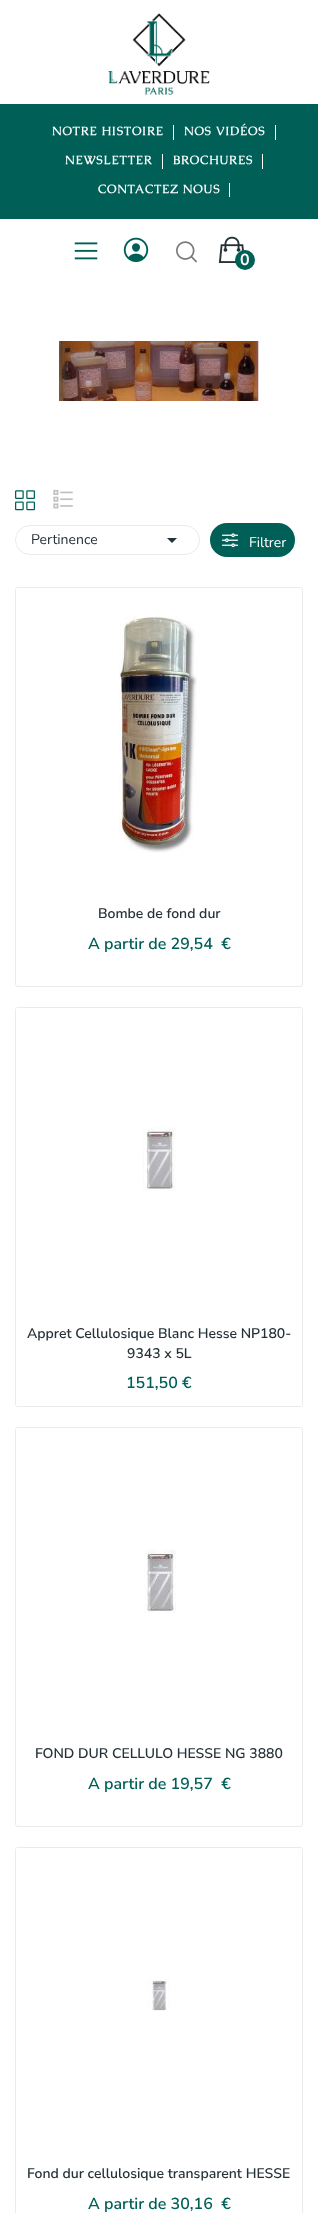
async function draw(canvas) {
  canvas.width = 318;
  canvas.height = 2213;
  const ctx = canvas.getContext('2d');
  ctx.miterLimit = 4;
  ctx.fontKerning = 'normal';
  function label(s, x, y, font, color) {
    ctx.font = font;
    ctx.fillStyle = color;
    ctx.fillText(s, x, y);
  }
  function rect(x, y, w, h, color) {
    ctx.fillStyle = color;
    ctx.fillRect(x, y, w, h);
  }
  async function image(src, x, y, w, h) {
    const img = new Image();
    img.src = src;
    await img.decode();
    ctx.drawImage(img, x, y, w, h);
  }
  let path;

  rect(0, 0, 318, 2213, '#fff');
  await image('assets/img1.png', 108, 13, 102, 82);
  rect(0, 104, 318, 115, '#006058');
  rect(173, 125, 1, 15, '#fff');
  ctx.letterSpacing = '0.75px';
  label('NOTRE HISTOIRE', 52, 135, 'bold 12px Caudex', '#fff');
  rect(275, 125, 1, 15, '#fff');
  label('NOS VIDÉOS', 184, 135, 'bold 12px Caudex', '#fff');
  rect(162, 154, 1, 15, '#fff');
  label('NEWSLETTER', 65, 164, 'bold 12px Caudex', '#fff');
  rect(262, 154, 1, 15, '#fff');
  label('BROCHURES', 173, 164, 'bold 12px Caudex', '#fff');
  rect(229, 183, 1, 14, '#fff');
  label('CONTACTEZ NOUS', 98, 193, 'bold 12px Caudex', '#fff');
  await image('assets/img2.png', 74, 242, 24, 18);
  await image('assets/img3.png', 123, 237, 26, 26);
  await image('assets/img4.png', 176, 241, 21, 22);
  await image('assets/img5.png', 218, 236, 26, 27);
  ctx.fillStyle = '#006058';
  ctx.beginPath();
  ctx.arc(245, 260, 10, 0, 2 * Math.PI);
  ctx.fill();
  ctx.letterSpacing = '0px';
  label('0', 240, 265, 'bold 16px Nunito Sans', '#fff');
  await image('assets/img6.png', 0, 341, 318, 60);
  await image('assets/img7.png', 15, 490, 20, 21);
  await image('assets/img8.png', 53, 489, 20, 20);
  ctx.beginPath();
  ctx.roundRect(15.5, 525.5, 184, 29, 14.5);
  ctx.strokeStyle = '#ebebeb';
  ctx.stroke();
  label('Pertinence', 31, 544, '14px Nunito Sans', '#253237');
  path = new Path2D('M167 538H177L172 543Z');
  ctx.fill(path);
  ctx.fillStyle = '#006058';
  ctx.beginPath();
  ctx.roundRect(211, 524, 83, 32, 16);
  ctx.fill();
  ctx.strokeStyle = '#006058';
  ctx.lineWidth = 2;
  ctx.stroke();
  await image('assets/img9.png', 221, 533, 18, 15);
  label('Filtrer', 249, 547, '14px Nunito Sans', '#fff');
  ctx.beginPath();
  ctx.roundRect(15.5, 587.5, 287, 399, 2.5);
  ctx.strokeStyle = '#ebebeb';
  ctx.lineWidth = 1;
  ctx.stroke();
  ctx.beginPath();
  ctx.roundRect(16, 588, 286, 286, [2, 2, 0, 0]);
  ctx.fill();
  await image('assets/img10.png', 119, 616, 78, 237);
  label('Bombe de fond dur', 98, 918, '600 14px Nunito Sans', '#253237');
  label('A partir de 29,54  €', 88, 949, '600 16px Nunito Sans', '#006058');
  ctx.beginPath();
  ctx.roundRect(15.5, 1007.5, 287, 399, 2.5);
  ctx.stroke();
  ctx.fillStyle = '#fff';
  ctx.beginPath();
  ctx.roundRect(16, 1008, 286, 286, [2, 2, 0, 0]);
  ctx.fill();
  await image('assets/img11.png', 142, 1126, 34, 65);
  ctx.beginPath();
  ctx.roundRect(16, 1294, 286, 112, [0, 0, 2, 2]);
  ctx.fill();
  label('Appret Cellulosique Blanc Hesse NP180-', 27, 1338, '600 14px Nunito Sans', '#253237');
  label('9343 x 5L', 127, 1358, '600 14px Nunito Sans', '#253237');
  label('151,50 €', 126, 1388, '600 16px Nunito Sans', '#006058');
  ctx.beginPath();
  ctx.roundRect(15.5, 1427.5, 287, 399, 2.5);
  ctx.stroke();
  ctx.fillStyle = '#fff';
  ctx.beginPath();
  ctx.roundRect(16, 1428, 286, 286, [2, 2, 0, 0]);
  ctx.fill();
  await image('assets/img12.png', 143, 1549, 33, 64);
  label('FOND DUR CELLULO HESSE NG 3880', 35, 1758, '600 14px Nunito Sans', '#253237');
  label('A partir de 19,57  €', 88, 1789, '600 16px Nunito Sans', '#006058');
  ctx.beginPath();
  ctx.roundRect(15.5, 1847.5, 287, 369, 2.5);
  ctx.stroke();
  ctx.fillStyle = '#fff';
  ctx.beginPath();
  ctx.roundRect(16, 1848, 286, 286, [2, 2, 0, 0]);
  ctx.fill();
  await image('assets/img13.png', 148, 1979, 23, 32);
  label('Fond dur cellulosique transparent HESSE', 27, 2178, '600 14px Nunito Sans', '#253237');
  label('A partir de 30,16  €', 88, 2209, '600 16px Nunito Sans', '#006058');
}

draw(document.querySelector('canvas'));
